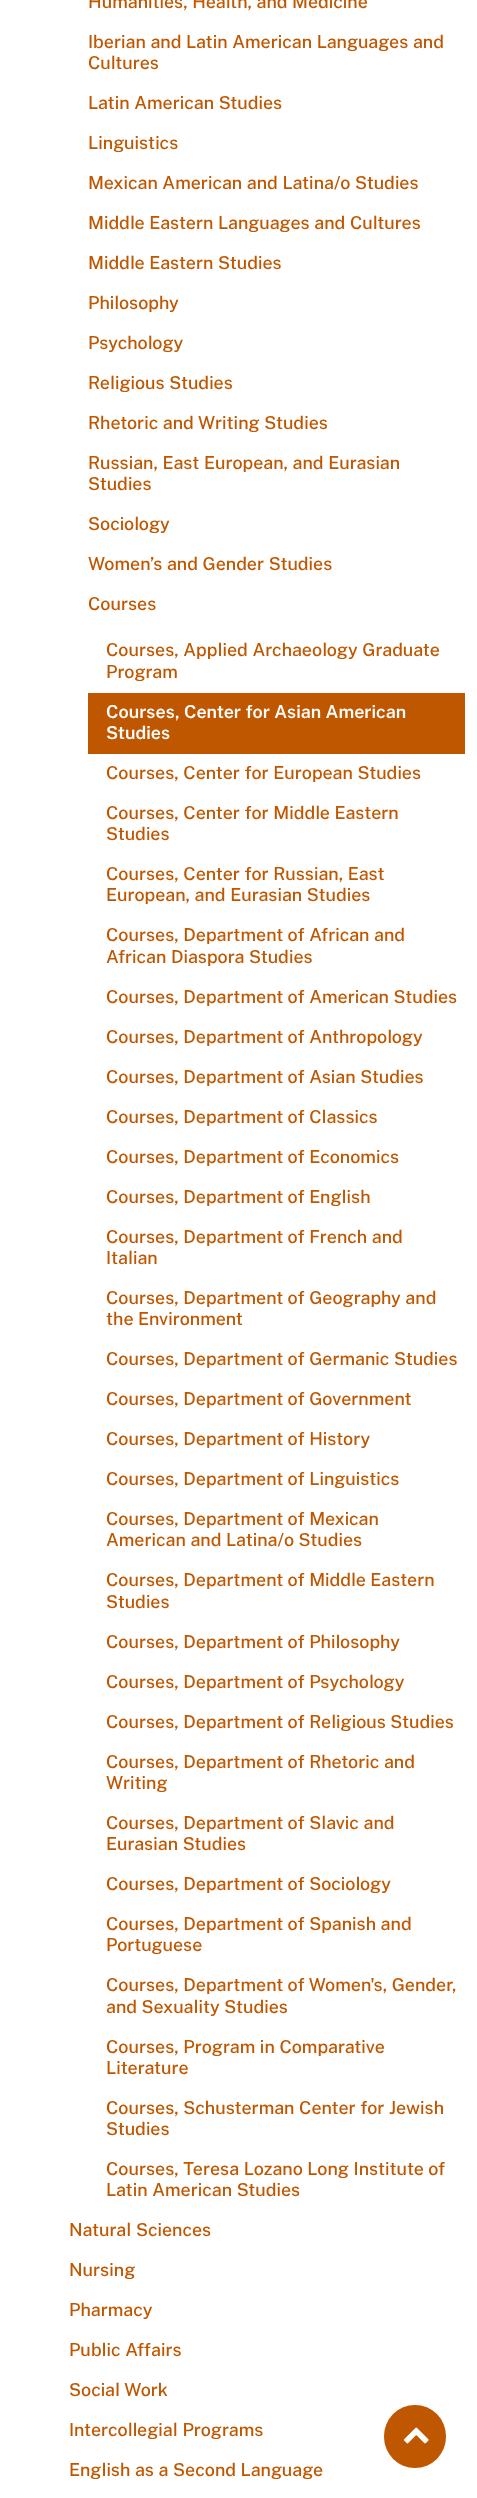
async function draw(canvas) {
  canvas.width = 477;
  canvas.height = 2498;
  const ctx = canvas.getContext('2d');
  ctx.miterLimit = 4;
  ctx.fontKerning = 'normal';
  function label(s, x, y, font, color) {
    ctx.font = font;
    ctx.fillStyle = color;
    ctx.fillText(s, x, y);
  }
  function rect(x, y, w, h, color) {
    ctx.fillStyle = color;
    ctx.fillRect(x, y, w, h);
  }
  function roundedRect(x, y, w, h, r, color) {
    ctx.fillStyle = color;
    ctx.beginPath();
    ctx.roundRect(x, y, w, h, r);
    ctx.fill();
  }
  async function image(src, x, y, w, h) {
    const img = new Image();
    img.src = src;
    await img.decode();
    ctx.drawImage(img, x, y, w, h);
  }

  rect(0, 0, 477, 2498, '#fff');
  label('Humanities, Health, and Medicine', 88, 8, '500 17.5px "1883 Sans"', '#bf5700');
  label('Iberian and Latin American Languages and', 88, 48, '500 17.5px "1883 Sans"', '#bf5700');
  label('Cultures', 88, 69, '500 17.5px "1883 Sans"', '#bf5700');
  label('Latin American Studies', 88, 109, '500 17.5px "1883 Sans"', '#bf5700');
  label('Linguistics', 88, 149, '500 17.5px "1883 Sans"', '#bf5700');
  label('Mexican American and Latina/o Studies', 88, 189, '500 17.5px "1883 Sans"', '#bf5700');
  label('Middle Eastern Languages and Cultures', 88, 229, '500 17.5px "1883 Sans"', '#bf5700');
  label('Middle Eastern Studies', 88, 269, '500 17.5px "1883 Sans"', '#bf5700');
  label('Philosophy', 88, 309, '500 17.5px "1883 Sans"', '#bf5700');
  label('Psychology', 88, 349, '500 17.5px "1883 Sans"', '#bf5700');
  label('Religious Studies', 88, 389, '500 17.5px "1883 Sans"', '#bf5700');
  label('Rhetoric and Writing Studies', 88, 429, '500 17.5px "1883 Sans"', '#bf5700');
  label('Russian, East European, and Eurasian', 88, 469, '500 17.5px "1883 Sans"', '#bf5700');
  label('Studies', 88, 490, '500 17.5px "1883 Sans"', '#bf5700');
  label('Sociology', 88, 530, '500 17.5px "1883 Sans"', '#bf5700');
  label('Women’s and Gender Studies', 88, 570, '500 17.5px "1883 Sans"', '#bf5700');
  label('Courses', 88, 610, '500 17.5px "1883 Sans"', '#bf5700');
  label('Courses, Applied Archaeology Graduate', 106, 656, '500 17.5px "1883 Sans"', '#bf5700');
  label('Program', 106, 678, '500 17.5px "1883 Sans"', '#bf5700');
  rect(88, 693, 377, 61, '#bf5700');
  label('Courses, Center for Asian American', 106, 718, '600 17.5px "1883 Sans"', '#fff');
  label('Studies', 106, 739, '600 17.5px "1883 Sans"', '#fff');
  label('Courses, Center for European Studies', 106, 779, '500 17.5px "1883 Sans"', '#bf5700');
  label('Courses, Center for Middle Eastern', 106, 819, '500 17.5px "1883 Sans"', '#bf5700');
  label('Studies', 106, 840, '500 17.5px "1883 Sans"', '#bf5700');
  label('Courses, Center for Russian, East', 106, 880, '500 17.5px "1883 Sans"', '#bf5700');
  label('European, and Eurasian Studies', 106, 901, '500 17.5px "1883 Sans"', '#bf5700');
  label('Courses, Department of African and', 106, 941, '500 17.5px "1883 Sans"', '#bf5700');
  label('African Diaspora Studies', 106, 963, '500 17.5px "1883 Sans"', '#bf5700');
  label('Courses, Department of American Studies', 106, 1003, '500 17.5px "1883 Sans"', '#bf5700');
  label('Courses, Department of Anthropology', 106, 1043, '500 17.5px "1883 Sans"', '#bf5700');
  label('Courses, Department of Asian Studies', 106, 1083, '500 17.5px "1883 Sans"', '#bf5700');
  label('Courses, Department of Classics', 106, 1123, '500 17.5px "1883 Sans"', '#bf5700');
  label('Courses, Department of Economics', 106, 1163, '500 17.5px "1883 Sans"', '#bf5700');
  label('Courses, Department of English', 106, 1203, '500 17.5px "1883 Sans"', '#bf5700');
  label('Courses, Department of French and', 106, 1243, '500 17.5px "1883 Sans"', '#bf5700');
  label('Italian', 106, 1264, '500 17.5px "1883 Sans"', '#bf5700');
  label('Courses, Department of Geography and', 106, 1304, '500 17.5px "1883 Sans"', '#bf5700');
  label('the Environment', 106, 1325, '500 17.5px "1883 Sans"', '#bf5700');
  label('Courses, Department of Germanic Studies', 106, 1365, '500 17.5px "1883 Sans"', '#bf5700');
  label('Courses, Department of Government', 106, 1405, '500 17.5px "1883 Sans"', '#bf5700');
  label('Courses, Department of History', 106, 1445, '500 17.5px "1883 Sans"', '#bf5700');
  label('Courses, Department of Linguistics', 106, 1485, '500 17.5px "1883 Sans"', '#bf5700');
  label('Courses, Department of Mexican', 106, 1525, '500 17.5px "1883 Sans"', '#bf5700');
  label('American and Latina/o Studies', 106, 1546, '500 17.5px "1883 Sans"', '#bf5700');
  label('Courses, Department of Middle Eastern', 106, 1586, '500 17.5px "1883 Sans"', '#bf5700');
  label('Studies', 106, 1608, '500 17.5px "1883 Sans"', '#bf5700');
  label('Courses, Department of Philosophy', 106, 1648, '500 17.5px "1883 Sans"', '#bf5700');
  label('Courses, Department of Psychology', 106, 1688, '500 17.5px "1883 Sans"', '#bf5700');
  label('Courses, Department of Religious Studies', 106, 1728, '500 17.5px "1883 Sans"', '#bf5700');
  label('Courses, Department of Rhetoric and', 106, 1768, '500 17.5px "1883 Sans"', '#bf5700');
  label('Writing', 106, 1789, '500 17.5px "1883 Sans"', '#bf5700');
  label('Courses, Department of Slavic and', 106, 1829, '500 17.5px "1883 Sans"', '#bf5700');
  label('Eurasian Studies', 106, 1850, '500 17.5px "1883 Sans"', '#bf5700');
  label('Courses, Department of Sociology', 106, 1890, '500 17.5px "1883 Sans"', '#bf5700');
  label('Courses, Department of Spanish and', 106, 1930, '500 17.5px "1883 Sans"', '#bf5700');
  label('Portuguese', 106, 1951, '500 17.5px "1883 Sans"', '#bf5700');
  label('Courses, Department of Women\'s, Gender,', 106, 1991, '500 17.5px "1883 Sans"', '#bf5700');
  label('and Sexuality Studies', 106, 2013, '500 17.5px "1883 Sans"', '#bf5700');
  label('Courses, Program in Comparative', 106, 2053, '500 17.5px "1883 Sans"', '#bf5700');
  label('Literature', 106, 2074, '500 17.5px "1883 Sans"', '#bf5700');
  label('Courses, Schusterman Center for Jewish', 106, 2114, '500 17.5px "1883 Sans"', '#bf5700');
  label('Studies', 106, 2135, '500 17.5px "1883 Sans"', '#bf5700');
  label('Courses, Teresa Lozano Long Institute of', 106, 2175, '500 17.5px "1883 Sans"', '#bf5700');
  label('Latin American Studies', 106, 2196, '500 17.5px "1883 Sans"', '#bf5700');
  label('Natural Sciences', 69, 2236, '500 17.5px "1883 Sans"', '#bf5700');
  label('Nursing', 69, 2276, '500 17.5px "1883 Sans"', '#bf5700');
  label('Pharmacy', 69, 2316, '500 17.5px "1883 Sans"', '#bf5700');
  label('Public Affairs', 69, 2356, '500 17.5px "1883 Sans"', '#bf5700');
  label('Social Work', 69, 2396, '500 17.5px "1883 Sans"', '#bf5700');
  label('Intercollegial Programs', 69, 2436, '500 17.5px "1883 Sans"', '#bf5700');
  label('English as a Second Language', 69, 2476, '500 17.5px "1883 Sans"', '#bf5700');
  roundedRect(384, 2405, 62, 63, 31, '#bf5700');
  await image('assets/img1.png', 403, 2427, 26, 17);
}

draw(document.querySelector('canvas'));
